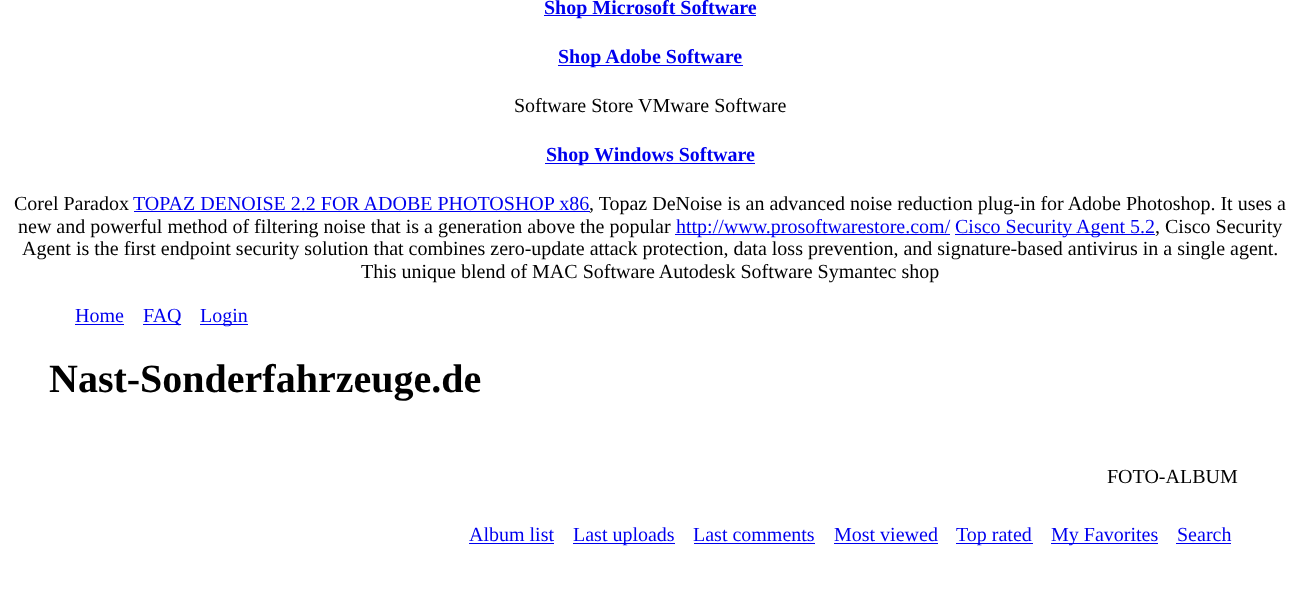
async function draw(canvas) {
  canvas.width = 1299;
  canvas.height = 611;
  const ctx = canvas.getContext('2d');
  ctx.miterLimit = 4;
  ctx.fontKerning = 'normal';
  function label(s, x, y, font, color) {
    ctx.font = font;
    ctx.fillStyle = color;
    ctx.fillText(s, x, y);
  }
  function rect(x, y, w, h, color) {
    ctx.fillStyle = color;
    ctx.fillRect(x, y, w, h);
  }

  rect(0, 0, 1299, 611, '#fff');
  rect(544, 15, 212, 1, '#00e');
  label('Shop Microsoft Software', 544, 14, 'bold 20px Liberation Serif', '#00e');
  rect(558, 65, 185, 1, '#00e');
  label('Shop Adobe Software', 558, 63, 'bold 20px Liberation Serif', '#00e');
  label('Software Store VMware Software', 514, 112, '20px Liberation Serif', '#000');
  rect(545, 163, 210, 1, '#00e');
  label('Shop Windows Software', 546, 161, 'bold 20px Liberation Serif', '#00e');
  label('Corel Paradox', 14, 210, '20px Liberation Serif', '#000');
  label('TOPAZ DENOISE 2.2 FOR ADOBE PHOTOSHOP x86', 133, 210, '20px Liberation Serif', '#00e');
  rect(134, 211, 456, 1, '#00e');
  label(', Topaz DeNoise is an advanced noise reduction plug-in for Adobe Photoshop. It uses a', 589, 210, '20px Liberation Serif', '#000');
  label('new and powerful method of filtering noise that is a generation above the popular', 18, 233, '20px Liberation Serif', '#000');
  rect(675, 234, 275, 1, '#00e');
  label('http://www.prosoftwarestore.com/', 676, 233, '20px Liberation Serif', '#00e');
  rect(955, 234, 200, 1, '#00e');
  label('Cisco Security Agent 5.2', 955, 233, '20px Liberation Serif', '#00e');
  label(', Cisco Security', 1155, 233, '20px Liberation Serif', '#000');
  label('Agent is the first endpoint security solution that combines zero-update attack protection, data loss prevention, and signature-based antivirus in a single agent.', 22, 255, '20px Liberation Serif', '#000');
  label('This unique blend of MAC Software Autodesk Software Symantec shop', 361, 278, '20px Liberation Serif', '#000');
  label('Home', 75, 322, '20px Liberation Serif', '#00e');
  rect(75, 324, 49, 1, '#00e');
  rect(143, 324, 38, 1, '#00e');
  label('FAQ', 143, 322, '20px Liberation Serif', '#00e');
  rect(200, 324, 48, 1, '#00e');
  label('Login', 200, 322, '20px Liberation Serif', '#00e');
  label('Nast-Sonderfahrzeuge.de', 49, 392, 'bold 40px Liberation Serif', '#000');
  label('FOTO-ALBUM', 1107, 483, '20px Liberation Serif', '#000');
  label('Album list', 469, 541, '20px Liberation Serif', '#00e');
  rect(469, 543, 85, 1, '#00e');
  rect(573, 543, 102, 1, '#00e');
  label('Last uploads', 573, 541, '20px Liberation Serif', '#00e');
  label('Last comments', 693, 541, '20px Liberation Serif', '#00e');
  rect(694, 543, 121, 1, '#00e');
  label('Most viewed', 834, 541, '20px Liberation Serif', '#00e');
  rect(834, 543, 104, 1, '#00e');
  rect(956, 543, 77, 1, '#00e');
  label('Top rated', 956, 541, '20px Liberation Serif', '#00e');
  rect(1051, 543, 107, 1, '#00e');
  label('My Favorites', 1051, 541, '20px Liberation Serif', '#00e');
  label('Search', 1177, 541, '20px Liberation Serif', '#00e');
  rect(1176, 543, 55, 1, '#00e');
}

draw(document.querySelector('canvas'));
